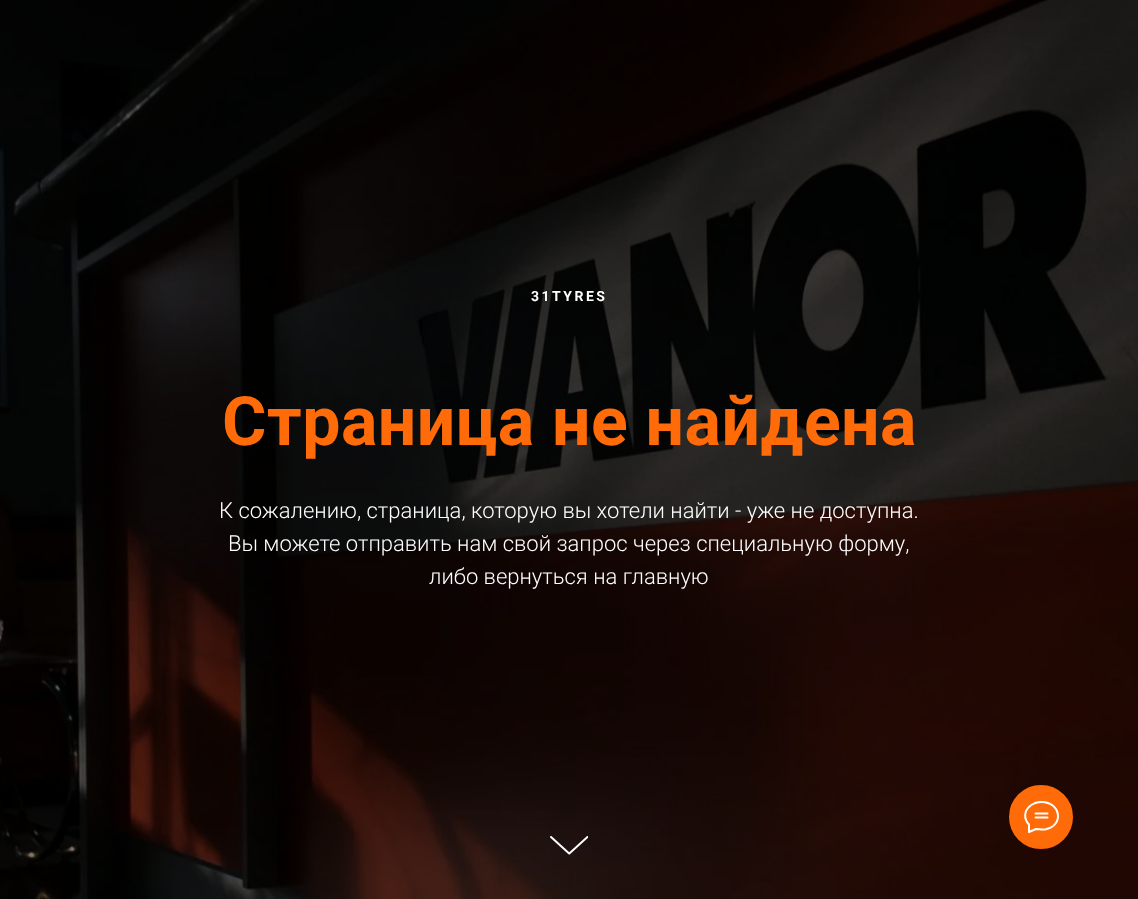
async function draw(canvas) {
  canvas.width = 1138;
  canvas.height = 899;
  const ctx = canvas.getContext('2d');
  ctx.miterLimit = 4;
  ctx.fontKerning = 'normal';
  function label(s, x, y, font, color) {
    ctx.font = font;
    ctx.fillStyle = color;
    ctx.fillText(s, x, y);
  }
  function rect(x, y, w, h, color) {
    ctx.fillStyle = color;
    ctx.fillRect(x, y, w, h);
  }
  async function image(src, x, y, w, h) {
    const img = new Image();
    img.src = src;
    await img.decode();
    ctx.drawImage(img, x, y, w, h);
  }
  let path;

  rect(0, 0, 1138, 899, '#fff');
  await image('assets/img1.png', 0, 0, 1138, 899);
  ctx.letterSpacing = '2.5px';
  label('31TYRES', 531, 301, 'bold 14px Roboto', '#fff');
  ctx.letterSpacing = '0.5px';
  label('Страница не найдена', 222, 445, 'bold 68px Roboto', '#ff6b08');
  ctx.letterSpacing = '0px';
  label('К сожалению, страница, которую вы хотели найти - уже не доступна.', 219, 518, '300 22px Roboto', '#fff');
  label('Вы можете отправить нам свой запрос через специальную форму,', 228, 551, '300 22px Roboto', '#fff');
  label('либо вернуться на главную', 429, 584, '300 22px Roboto', '#fff');
  await image('assets/img2.png', 550, 836, 38, 19);
  ctx.fillStyle = '#ff6b08';
  ctx.beginPath();
  ctx.arc(1041, 817, 31, 0, 2 * Math.PI);
  ctx.fill();
  ctx.strokeStyle = '#ff6b08';
  ctx.lineWidth = 2;
  ctx.stroke();
  path = new Path2D('M1035.5 813.5H1047.5M1035.5 817.5H1047.5M1029 824.5C1023.5 819 1024 811 1030 806C1033 803.5 1037.5 802 1041.5 802C1061 802 1064.5 826 1045 829.5C1041 830 1039.5 829 1036 829L1029 832V825Z');
  ctx.strokeStyle = '#fff';
  ctx.lineCap = 'round';
  ctx.lineJoin = 'round';
  ctx.stroke(path);
}

draw(document.querySelector('canvas'));
